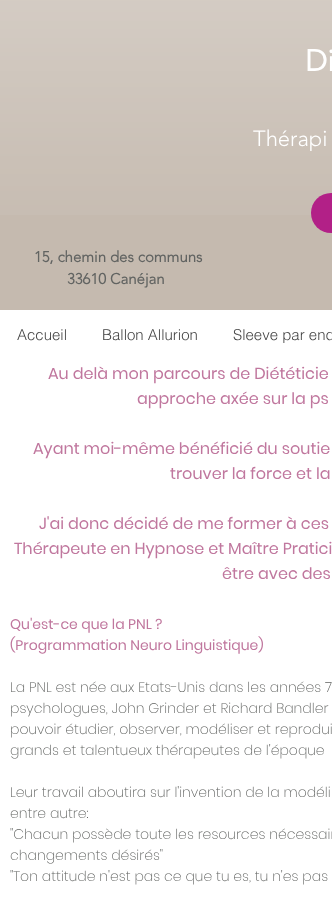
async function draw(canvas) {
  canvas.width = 332;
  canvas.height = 911;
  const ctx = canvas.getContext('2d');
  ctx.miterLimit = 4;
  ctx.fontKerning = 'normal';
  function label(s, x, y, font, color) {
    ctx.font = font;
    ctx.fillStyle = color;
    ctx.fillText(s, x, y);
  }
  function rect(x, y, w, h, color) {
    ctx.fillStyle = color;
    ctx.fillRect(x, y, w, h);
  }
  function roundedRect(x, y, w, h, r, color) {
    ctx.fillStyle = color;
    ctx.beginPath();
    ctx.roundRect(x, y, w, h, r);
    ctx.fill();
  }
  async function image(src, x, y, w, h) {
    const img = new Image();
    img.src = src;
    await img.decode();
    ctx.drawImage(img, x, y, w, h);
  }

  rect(0, 0, 332, 911, '#fff');
  rect(0, 0, 332, 310, '#c5baaf');
  await image('assets/img1.png', 0, 0, 332, 215);
  label('Di', 305, 71, 'bold 30px "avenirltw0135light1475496"', '#fff');
  label('Thérapi', 253, 146, '300 22px "avenirltw0135light1475496"', '#fff');
  roundedRect(311, 193, 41, 40, 20, '#b22087');
  label('15, chemin des communs', 34, 262, 'bold 15px "avenirltw0135light1475496"', '#626462');
  label('33610 Canéjan', 67, 284, 'bold 15px "avenirltw0135light1475496"', '#626462');
  label('Accueil', 17, 340, '300 15px helvetica', '#444');
  label('Ballon Allurion', 102, 340, '300 15px helvetica', '#444');
  label('Sleeve par end', 233, 340, '300 15px helvetica', '#444');
  label('Au delà mon parcours de Diététicie', 48, 379, '16px Poppins', '#c0779e');
  label('approche axée sur la ps', 137, 404, '16px Poppins', '#c0779e');
  label('Ayant moi-même bénéficié du soutie', 33, 454, '16px Poppins', '#c0779e');
  label('trouver la force et la', 170, 479, '16px Poppins', '#c0779e');
  label('J\'ai donc décidé de me former à ces', 39, 529, '16px Poppins', '#c0779e');
  label('Thérapeute en Hypnose et Maître Pratici', 14, 554, '16px Poppins', '#c0779e');
  label('être avec des', 222, 579, '16px Poppins', '#c0779e');
  label('Qu\'est-ce que la PNL ?', 10, 629, '14px Poppins', '#c0779e');
  label('(Programmation Neuro Linguistique)', 10, 650, '14px Poppins', '#c0779e');
  label('La PNL est née aux Etats-Unis dans les années 7', 10, 692, '200 14px Poppins', '#626462');
  label('psychologues, John Grinder et Richard Bandler', 10, 713, '200 14px Poppins', '#626462');
  label('pouvoir étudier, observer, modéliser et reprodui', 10, 734, '200 14px Poppins', '#626462');
  label('grands et talentueux thérapeutes de l\'époque', 10, 755, '200 14px Poppins', '#626462');
  label('Leur travail aboutira sur l\'invention de la modéli', 10, 797, '200 14px Poppins', '#626462');
  label('entre autre:', 10, 818, '200 14px Poppins', '#626462');
  label('"Chacun possède toute les resources nécessair', 10, 839, '200 14px Poppins', '#626462');
  label('changements désirés"', 10, 860, '200 14px Poppins', '#626462');
  label('"Ton attitude n\'est pas ce que tu es, tu n\'es pas', 10, 881, '200 14px Poppins', '#626462');
}

draw(document.querySelector('canvas'));
